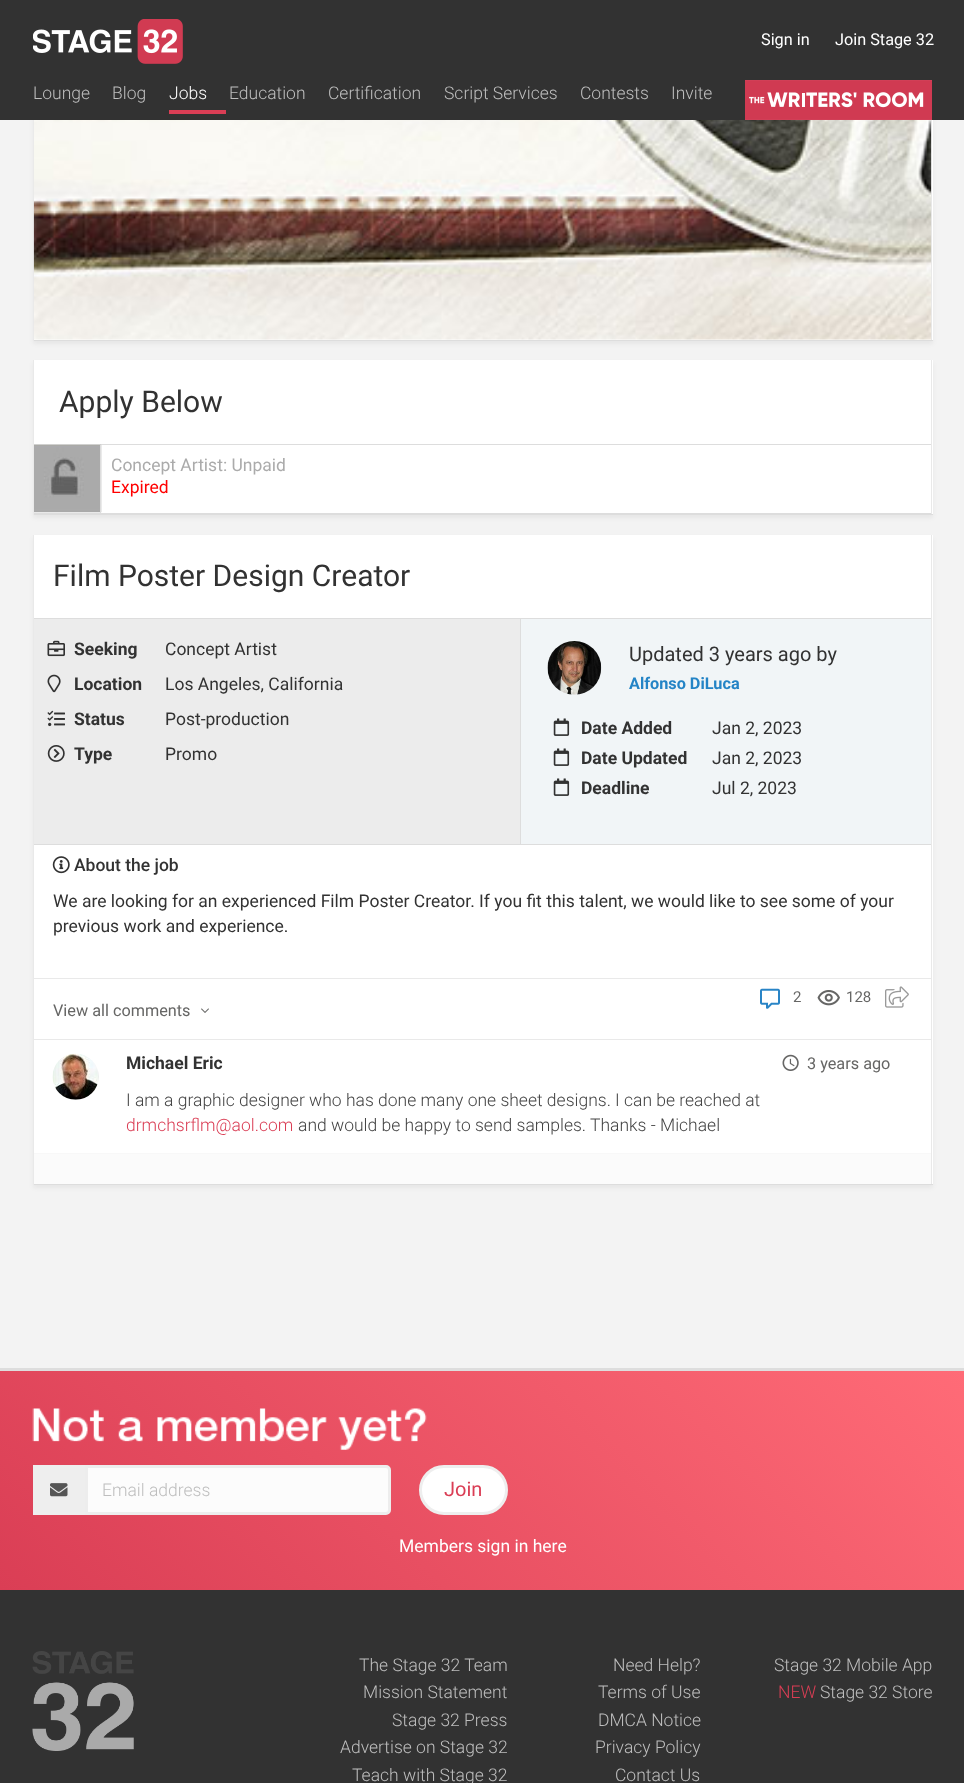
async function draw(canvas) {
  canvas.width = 964;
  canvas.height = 1783;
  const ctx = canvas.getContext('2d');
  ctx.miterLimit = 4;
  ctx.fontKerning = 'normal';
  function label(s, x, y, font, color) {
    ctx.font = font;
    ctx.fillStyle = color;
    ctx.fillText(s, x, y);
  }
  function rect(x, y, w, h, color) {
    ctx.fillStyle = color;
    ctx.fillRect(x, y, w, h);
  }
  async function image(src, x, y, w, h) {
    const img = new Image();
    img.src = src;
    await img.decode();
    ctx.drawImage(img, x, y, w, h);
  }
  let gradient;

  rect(0, 0, 964, 1783, '#f3f3f3');
  ctx.fillStyle = '#0000000d';
  ctx.filter = 'blur(2px)';
  ctx.beginPath();
  ctx.rect(33, -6, 900, 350);
  ctx.fill();
  ctx.filter = 'none';
  rect(0, 0, 964, 120, '#323232');
  await image('assets/img1.png', 33, 19, 150, 45);
  label('Sign in', 761, 45, '16.25px Roboto', '#fff');
  label('Join Stage 32', 835, 45, '16.25px Roboto', '#fff');
  label('Lounge', 33, 99, '300 17.5px Roboto', '#bebebe');
  label('Blog', 112, 99, '300 17.5px Roboto', '#bebebe');
  rect(169, 110, 57, 4, '#da3e55');
  label('Jobs', 169, 99, '300 17.5px Roboto', '#fff');
  label('Education', 229, 99, '300 17.5px Roboto', '#bebebe');
  label('Certification', 328, 99, '300 17.5px Roboto', '#bebebe');
  label('Script Services', 444, 99, '300 17.5px Roboto', '#bebebe');
  label('Contests', 580, 99, '300 17.5px Roboto', '#bebebe');
  label('Invite', 671, 99, '300 17.5px Roboto', '#bebebe');
  await image('assets/img2.png', 745, 80, 187, 40);
  rect(34, 120, 899, 220, '#fff');
  rect(931, 120, 1, 221, '#e9e9e9');
  rect(33, 340, 900, 1, '#ddd');
  rect(33, 120, 1, 221, '#e9e9e9');
  await image('assets/img3.png', 33, 120, 899, 220);
  ctx.fillStyle = '#0000000d';
  ctx.filter = 'blur(2px)';
  ctx.beginPath();
  ctx.rect(33, 363, 900, 155);
  ctx.fill();
  ctx.filter = 'none';
  rect(34, 360, 899, 154, '#fff');
  rect(931, 360, 1, 155, '#e9e9e9');
  rect(33, 514, 900, 1, '#ddd');
  rect(33, 360, 1, 155, '#e9e9e9');
  rect(34, 444, 897, 1, '#ddd');
  label('Apply Below', 59, 412, '30px Roboto', '#323232');
  rect(34, 513, 897, 1, '#ddd');
  await image('assets/img4.png', 34, 444, 68, 69);
  rect(100, 445, 1, 68, '#ddd');
  label('Concept Artist: Unpaid', 111, 471, '17.5px Roboto', '#ababab');
  label('Expired', 111, 493, '17.5px Roboto', '#f00');
  ctx.fillStyle = '#0000000d';
  ctx.filter = 'blur(2px)';
  ctx.beginPath();
  ctx.rect(33, 538, 900, 650);
  ctx.fill();
  ctx.filter = 'none';
  rect(34, 535, 899, 649, '#fff');
  rect(931, 535, 1, 650, '#e9e9e9');
  rect(33, 1184, 900, 1, '#ddd');
  rect(33, 535, 1, 650, '#e9e9e9');
  label('Film Poster Design Creator', 53, 586, '30px Roboto', '#323232');
  rect(34, 619, 486, 225, '#ececec');
  rect(34, 618, 897, 1, '#ddd');
  rect(34, 844, 897, 1, '#ddd');
  await image('assets/img5.png', 47, 640, 18, 17);
  label('Seeking', 74, 655, 'bold 17.5px Roboto', '#323232');
  label('Concept Artist', 165, 655, '17.5px Roboto', '#323232');
  await image('assets/img6.png', 47, 674, 14, 19);
  label('Location', 74, 690, 'bold 17.5px Roboto', '#323232');
  label('Los Angeles, California', 165, 690, '17.5px Roboto', '#323232');
  await image('assets/img7.png', 47, 710, 18, 17);
  label('Status', 74, 725, 'bold 17.5px Roboto', '#323232');
  label('Post-production', 165, 725, '17.5px Roboto', '#323232');
  await image('assets/img8.png', 47, 745, 18, 17);
  label('Type', 74, 760, 'bold 17.5px Roboto', '#323232');
  label('Promo', 165, 760, '17.5px Roboto', '#323232');
  rect(521, 619, 410, 225, '#f1f5f7');
  rect(520, 619, 1, 225, '#ddd');
  await image('assets/img9.png', 547, 641, 55, 54);
  label('Updated 3 years ago by', 629, 661, '20px Roboto', '#323232');
  label('Alfonso DiLuca', 629, 689, 'bold 16.25px Roboto', '#2484c6');
  await image('assets/img10.png', 553, 718, 17, 18);
  label('Date Added', 581, 734, 'bold 17.5px Roboto', '#323232');
  label('Jan 2, 2023', 712, 734, '17.5px Roboto', '#323232');
  await image('assets/img10.png', 553, 748, 17, 18);
  label('Date Updated', 581, 764, 'bold 17.5px Roboto', '#323232');
  label('Jan 2, 2023', 712, 764, '17.5px Roboto', '#323232');
  await image('assets/img10.png', 553, 778, 17, 18);
  label('Deadline', 581, 794, 'bold 17.5px Roboto', '#323232');
  label('Jul 2, 2023', 712, 794, '17.5px Roboto', '#323232');
  await image('assets/img11.png', 52, 856, 18, 18);
  label('About the job', 74, 871, '500 17.5px Roboto', '#323232');
  label('We are looking for an experienced Film Poster Creator. If you fit this talent, we would like to see some of your', 53, 907, '17.5px Roboto', '#323232');
  label('previous work and experience.', 53, 932, '17.5px Roboto', '#323232');
  rect(34, 978, 897, 1, '#e9e9e9');
  rect(34, 1039, 897, 1, '#e9e9e9');
  await image('assets/img12.png', 760, 988, 20, 21);
  label('2', 793, 1002, '15px Roboto', '#666665');
  await image('assets/img13.png', 817, 990, 23, 16);
  label('128', 846, 1002, '15px Roboto', '#666665');
  await image('assets/img14.png', 885, 986, 24, 22);
  label('View all comments', 53, 1016, '16.25px Roboto', '#666665');
  await image('assets/img15.png', 201, 1008, 8, 5);
  await image('assets/img16.png', 52, 1053, 47, 47);
  label('Michael Eric', 126, 1069, 'bold 17.5px Roboto', '#323232');
  await image('assets/img17.png', 782, 1054, 17, 17);
  label('3 years ago', 807, 1069, '16.25px Roboto', '#666665');
  label('I am a graphic designer who has done many one sheet designs. I can be reached at', 126, 1106, '300 17.5px Roboto', '#444');
  label('drmchsrflm@aol.com', 126, 1131, '300 17.5px Roboto', '#da3e55');
  label('and would be happy to send samples. Thanks - Michael', 298, 1131, '300 17.5px Roboto', '#444');
  rect(34, 1154, 897, 30, '#fbfbfb');
  rect(34, 1153, 897, 1, '#f8f8f8');
  gradient = ctx.createLinearGradient(186, 1776, 779, 1184);
  gradient.addColorStop(0, '#da3e55');
  gradient.addColorStop(1, '#ff6b77');
  ctx.fillStyle = gradient;
  ctx.fillRect(0, 1371, 964, 219);
  rect(0, 1368, 964, 3, '#ddd');
  await image('assets/img18.png', 32, 1408, 395, 42);
  rect(33, 1465, 52, 50, '#eee');
  await image('assets/img19.png', 50, 1483, 18, 14);
  ctx.fillStyle = '#fcfcfc';
  ctx.beginPath();
  ctx.roundRect(86.5, 1466.5, 303, 47, [0, 3.5, 3.5, 0]);
  ctx.fill();
  ctx.strokeStyle = '#ededed';
  ctx.lineWidth = 3;
  ctx.stroke();
  label('Email address', 102, 1496, '300 17.5px Roboto', '#bebebe');
  ctx.fillStyle = '#fff';
  ctx.beginPath();
  ctx.roundRect(420.5, 1466.5, 86, 47, 23.5);
  ctx.fill();
  ctx.strokeStyle = '#eee';
  ctx.stroke();
  label('Join', 444, 1496, '20px Roboto', '#da3e55');
  label('Members sign in here', 399, 1552, '17.5px Roboto', '#fff');
  rect(0, 1590, 964, 193, '#323232');
  await image('assets/img20.png', 32, 1651, 102, 100);
  label('The Stage 32 Team', 359, 1671, '300 17.5px Roboto', '#bebebe');
  label('Mission Statement', 363, 1698, '300 17.5px Roboto', '#bebebe');
  label('Stage 32 Press', 392, 1726, '300 17.5px Roboto', '#bebebe');
  label('Advertise on Stage 32', 340, 1753, '300 17.5px Roboto', '#bebebe');
  label('Teach with Stage 32', 352, 1781, '300 17.5px Roboto', '#bebebe');
  label('Need Help?', 613, 1671, '300 17.5px Roboto', '#bebebe');
  label('Terms of Use', 598, 1698, '300 17.5px Roboto', '#bebebe');
  label('DMCA Notice', 598, 1726, '300 17.5px Roboto', '#bebebe');
  label('Privacy Policy', 595, 1753, '300 17.5px Roboto', '#bebebe');
  label('Contact Us', 615, 1781, '300 17.5px Roboto', '#bebebe');
  label('Stage 32 Mobile App', 774, 1671, '300 17.5px Roboto', '#bebebe');
  label('NEW', 778, 1698, '300 17.5px Roboto', '#da3e55');
  label('Stage 32 Store', 820, 1698, '300 17.5px Roboto', '#bebebe');
}

draw(document.querySelector('canvas'));
